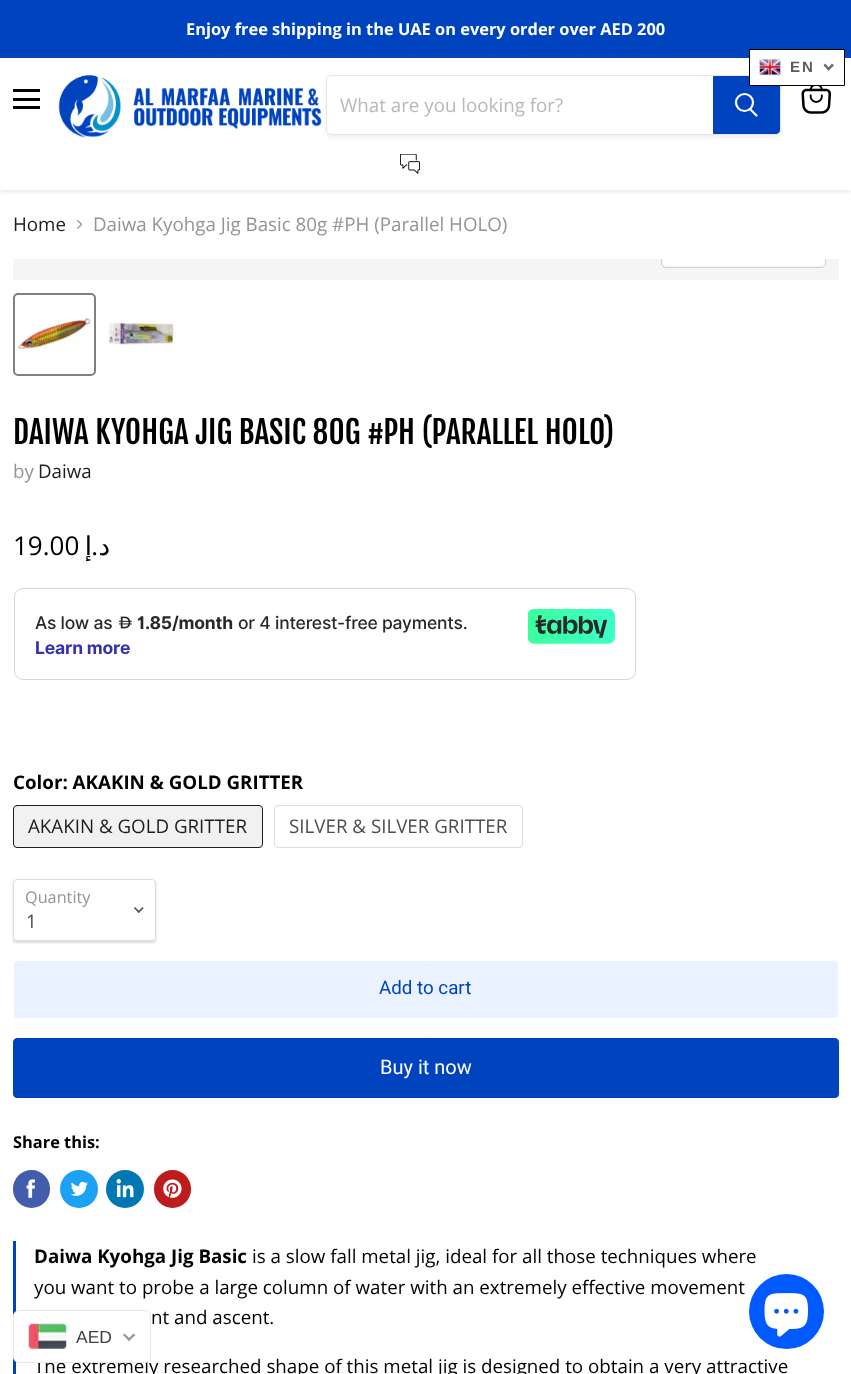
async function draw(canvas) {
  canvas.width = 851;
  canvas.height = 1374;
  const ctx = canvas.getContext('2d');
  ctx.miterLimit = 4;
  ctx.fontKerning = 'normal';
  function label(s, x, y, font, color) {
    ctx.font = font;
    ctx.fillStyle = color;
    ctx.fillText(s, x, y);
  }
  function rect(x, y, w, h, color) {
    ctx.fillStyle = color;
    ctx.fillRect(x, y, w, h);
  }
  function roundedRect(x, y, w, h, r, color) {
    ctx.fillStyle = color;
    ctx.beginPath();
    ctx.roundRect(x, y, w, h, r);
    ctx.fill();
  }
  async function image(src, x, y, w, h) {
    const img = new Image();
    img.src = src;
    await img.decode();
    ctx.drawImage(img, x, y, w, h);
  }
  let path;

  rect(0, 0, 851, 1374, '#fff');
  rect(0, 0, 851, 58, '#0043bf');
  label('Enjoy free shipping in the UAE on every order over AED 200', 186, 35, 'bold 16.4px Open Sans', '#fff');
  ctx.fillStyle = '#80808040';
  ctx.filter = 'blur(2.5px)';
  ctx.beginPath();
  ctx.rect(0, 59, 851, 132);
  ctx.fill();
  ctx.filter = 'none';
  rect(0, 58, 851, 132, '#fff');
  await image('assets/img2.png', 58, 74, 264, 64);
  ctx.save();
  path = new Path2D('M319 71H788V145H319ZM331 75H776C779 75 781 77 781 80V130C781 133 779 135 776 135H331C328 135 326 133 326 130V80C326 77 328 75 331 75Z');
  ctx.clip(path, 'evenodd');
  ctx.fillStyle = '#8080801c';
  ctx.filter = 'blur(2px)';
  ctx.beginPath();
  ctx.roundRect(326, 78, 455, 60, 5);
  ctx.fill();
  ctx.filter = 'none';
  ctx.restore();
  ctx.beginPath();
  ctx.roundRect(326.5, 75.5, 454, 59, 4.5);
  ctx.strokeStyle = '#80808033';
  ctx.stroke();
  ctx.fillStyle = '#0043bf';
  ctx.beginPath();
  ctx.roundRect(713.5, 76.5, 66, 57, [0, 3.5, 3.5, 0]);
  ctx.fill();
  ctx.strokeStyle = '#0043bf';
  ctx.stroke();
  ctx.fillStyle = '#fff';
  ctx.beginPath();
  ctx.rect(749.5, 49.5, 95, 36);
  ctx.fill();
  ctx.strokeStyle = '#000';
  ctx.stroke();
  await image('assets/img1.png', 759, 58, 22, 18);
  ctx.letterSpacing = '2px';
  label('EN', 790, 72, 'bold 15px Liberation Sans', '#5c5c5c');
  ctx.fillStyle = '#6c6c6c';
  path = new Path2D('M832 63.5L834 65.5L828.5 70.5L827 69Z');
  ctx.fill(path);
  path = new Path2D('M825 63.5L830.5 69L828.5 70.5L823.5 65.5Z');
  ctx.fill(path);
  rect(13, 89, 27, 3, '#000');
  rect(13, 98, 27, 3, '#000');
  rect(13, 106, 27, 3, '#000');
  ctx.letterSpacing = '0px';
  label('What are you looking for?', 340, 112, '18.75px Open Sans', '#b8b8b8');
  path = new Path2D('M756.5 115.5L750.5 109.5');
  ctx.strokeStyle = '#fff';
  ctx.lineWidth = 2.2;
  ctx.lineCap = 'round';
  ctx.stroke(path);
  ctx.beginPath();
  ctx.arc(744.5, 102.5, 8.5, 0, 2 * Math.PI);
  ctx.stroke();
  await image('assets/img3.png', 400, 154, 20, 20);
  await image('assets/img4.png', 801, 86, 30, 28);
  label('Home', 13, 231, '18.75px Open Sans', '#1d1d1d');
  await image('assets/img5.png', 77, 219, 6, 10);
  label('Daiwa Kyohga Jig Basic 80g #PH (Parallel HOLO)', 93, 231, '18.75px Open Sans', '#949494');
  rect(13, 259, 826, 21, '#f5f5f5');
  ctx.save();
  ctx.beginPath();
  ctx.rect(13, 259, 826, 21);
  ctx.clip();
  ctx.beginPath();
  ctx.roundRect(661.5, 230.5, 164, 37, 4.5);
  ctx.strokeStyle = '#d0d0d0';
  ctx.lineWidth = 1;
  ctx.stroke();
  ctx.restore();
  ctx.fillStyle = '#fefefe';
  ctx.beginPath();
  ctx.roundRect(663, 259, 162, 7, [0, 0, 4, 4]);
  ctx.fill();
  ctx.beginPath();
  ctx.roundRect(14, 294, 81, 81, 4);
  ctx.strokeStyle = '#818181';
  ctx.lineWidth = 2;
  ctx.stroke();
  await image('assets/img6.png', 16, 318, 75, 34);
  await image('assets/img7.png', 108, 320, 68, 25);
  label('DAIWA KYOHGA JIG BASIC 80G #PH (PARALLEL HOLO)', 13, 444, '31.25px Fjalla One', '#000');
  label('by', 13, 478, '18.75px Open Sans', '#949494');
  label('Daiwa', 38, 478, '18.75px Open Sans', '#1d1d1d');
  label('19.00', 13, 555, '26px Open Sans', '#000');
  ctx.direction = 'rtl';
  label('إ', 92, 555, '26px DejaVu Sans', '#000');
  label('.', 98, 555, '26px Open Sans', '#000');
  label('د', 110, 555, '26px DejaVu Sans', '#000');
  ctx.beginPath();
  ctx.roundRect(14.5, 588.5, 621, 91, 8.5);
  ctx.strokeStyle = '#d6d6d3';
  ctx.lineWidth = 1;
  ctx.stroke();
  ctx.letterSpacing = '-0.2px';
  ctx.direction = 'ltr';
  label('As low as', 35, 629, '500 17.5px Inter', '#292929');
  await image('assets/img8.png', 118, 616, 14, 13);
  label('1.85/month', 137, 629, 'bold 17.5px Inter', '#292929');
  label('or 4 interest-free payments.', 238, 629, '500 17.5px Inter', '#292929');
  label('Learn more', 35, 654, 'bold 17.5px Inter', '#3533ac');
  await image('assets/img9.png', 528, 609, 87, 35);
  ctx.letterSpacing = '0px';
  label('Color: AKAKIN & GOLD GRITTER', 13, 789, 'bold 18.75px Open Sans', '#000');
  ctx.fillStyle = '#f1f1f1';
  ctx.beginPath();
  ctx.roundRect(13.5, 805.5, 249, 42, 3.5);
  ctx.fill();
  ctx.strokeStyle = '#1d1d1d';
  ctx.stroke();
  label('AKAKIN & GOLD GRITTER', 28, 833, '18.75px Open Sans', '#1d1d1d');
  ctx.beginPath();
  ctx.roundRect(274.5, 805.5, 248, 42, 3.5);
  ctx.strokeStyle = '#ddd';
  ctx.stroke();
  label('SILVER & SILVER GRITTER', 289, 833, '18.75px Open Sans', '#4d4d4d');
  ctx.save();
  path = new Path2D('M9 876H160V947H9ZM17 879H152C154 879 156 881 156 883V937C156 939 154 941 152 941H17C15 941 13 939 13 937V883C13 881 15 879 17 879Z');
  ctx.clip(path, 'evenodd');
  ctx.fillStyle = '#00000026';
  ctx.filter = 'blur(1px)';
  ctx.beginPath();
  ctx.roundRect(13, 880, 143, 63, 4);
  ctx.fill();
  ctx.filter = 'none';
  ctx.restore();
  ctx.beginPath();
  ctx.roundRect(13.5, 879.5, 142, 61, 3.5);
  ctx.stroke();
  label('Quantity', 25, 903, '16.25px Open Sans', '#949494');
  await image('assets/img10.png', 134, 907, 10, 6);
  label('1', 26, 928, '18.75px Open Sans', '#4d4d4d');
  ctx.fillStyle = '#ebf2ff';
  ctx.beginPath();
  ctx.roundRect(13.5, 960.5, 825, 58, 3.5);
  ctx.fill();
  ctx.strokeStyle = '#fff';
  ctx.stroke();
  label('Add to cart', 379, 994, '18.75px Roboto', '#0043bf');
  ctx.beginPath();
  ctx.roundRect(13.5, 1038.5, 825, 59, 3.5);
  ctx.fill();
  ctx.strokeStyle = '#0043bf';
  ctx.stroke();
  label('Buy it now', 380, 1074, '20px Roboto', '#fff');
  label('Share this:', 13, 1148, 'bold 16.4px Open Sans', '#000');
  roundedRect(13, 1170, 37, 38, 18.5, '#425dab');
  await image('assets/img11.png', 26, 1179, 9, 19);
  ctx.fillStyle = '#1da1f2';
  ctx.beginPath();
  ctx.arc(79, 1189, 19, 0, 2 * Math.PI);
  ctx.fill();
  await image('assets/img12.png', 70, 1181, 18, 15);
  ctx.fillStyle = '#0077b5';
  ctx.beginPath();
  ctx.arc(125, 1189, 19, 0, 2 * Math.PI);
  ctx.fill();
  await image('assets/img13.png', 116, 1179, 18, 19);
  roundedRect(154, 1170, 37, 38, 18.5, '#bd1c1c');
  await image('assets/img14.png', 163, 1179, 19, 19);
  rect(13, 1241, 3, 133, '#0043bf');
  label('Daiwa Kyohga Jig Basic', 34, 1263, 'bold 18.75px Open Sans', '#000');
  label('is a slow fall metal jig, ideal for all those techniques where', 252, 1263, '18.75px Open Sans', '#000');
  label('you want to probe a large column of water with an extremely effective movement', 34, 1294, '18.75px Open Sans', '#000');
  label('nt and ascent.', 151, 1324, '18.75px Open Sans', '#000');
  label('The extremely researched shape of this metal jig is designed to obtain a very attractive', 34, 1373, '18.75px Open Sans', '#000');
  ctx.fillStyle = '#fff';
  ctx.beginPath();
  ctx.roundRect(13.5, 1310.5, 137, 52, 5.5);
  ctx.fill();
  ctx.strokeStyle = '#e8e8e8';
  ctx.stroke();
  await image('assets/img15.png', 28, 1323, 39, 26);
  label('AED', 76, 1343, '17.5px Liberation Sans', '#403f3f');
  ctx.fillStyle = '#999';
  path = new Path2D('M133.5 1333.5L135.5 1335L129 1341L127.5 1339.5Z');
  ctx.fill(path);
  path = new Path2D('M124.5 1333.5L131 1339.5L129 1341L123 1335Z');
  ctx.fill(path);
  ctx.fillStyle = '#005aff';
  ctx.beginPath();
  ctx.arc(786.5, 1311.5, 37.5, 0, 2 * Math.PI);
  ctx.fill();
  await image('assets/img16.png', 764, 1293, 44, 44);
}

draw(document.querySelector('canvas'));
